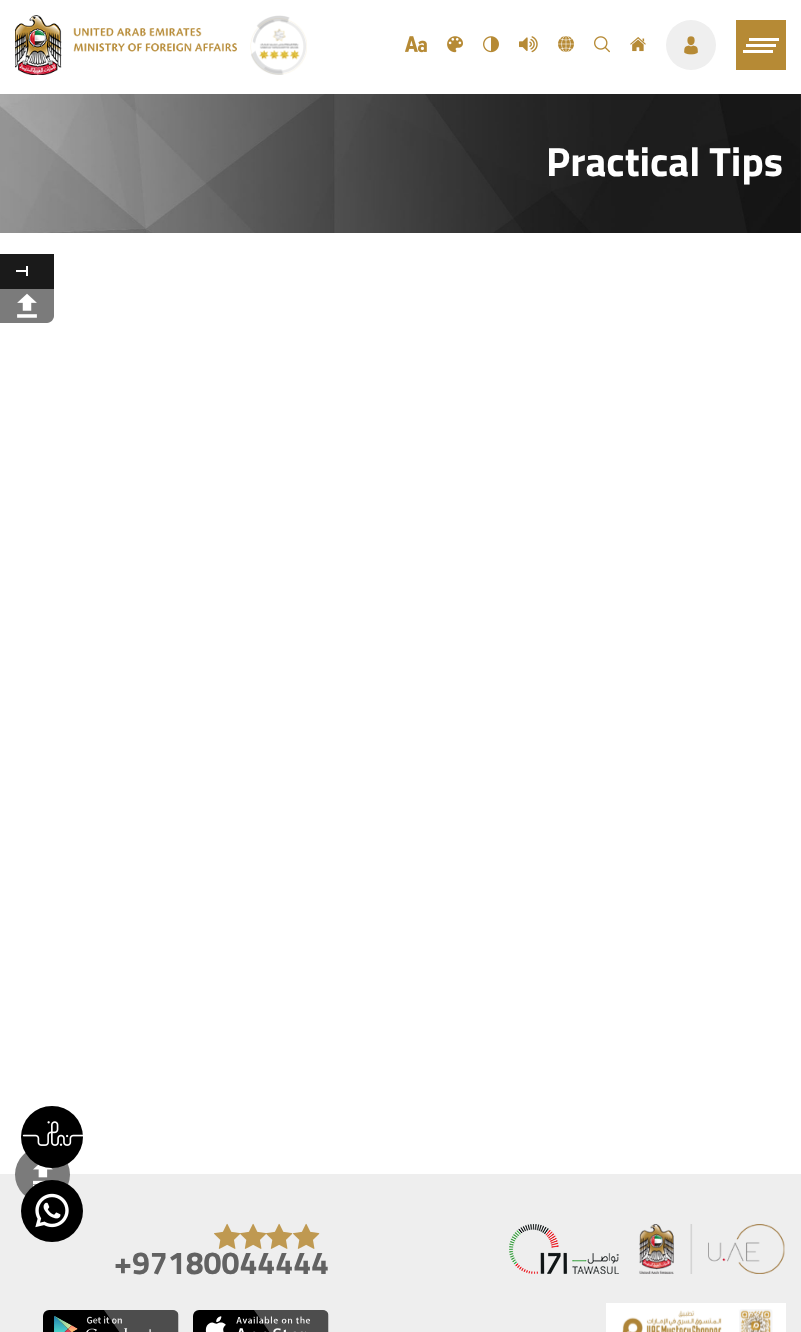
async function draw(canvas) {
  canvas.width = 801;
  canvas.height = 1332;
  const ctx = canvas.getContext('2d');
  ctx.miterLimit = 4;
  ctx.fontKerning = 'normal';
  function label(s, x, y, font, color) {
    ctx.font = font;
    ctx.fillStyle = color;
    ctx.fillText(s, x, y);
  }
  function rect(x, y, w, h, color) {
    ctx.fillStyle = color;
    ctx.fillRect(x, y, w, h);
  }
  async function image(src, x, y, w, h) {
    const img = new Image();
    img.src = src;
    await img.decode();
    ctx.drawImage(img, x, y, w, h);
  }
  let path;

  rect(0, 0, 801, 1332, '#fff');
  await image('assets/img1.png', 15, 15, 222, 60);
  await image('assets/img2.png', 250, 15, 57, 60);
  await image('assets/img3.png', 405, 36, 22, 17);
  await image('assets/img4.png', 447, 36, 16, 17);
  await image('assets/img5.png', 483, 36, 16, 17);
  await image('assets/img6.png', 519, 36, 19, 17);
  await image('assets/img7.png', 558, 36, 16, 16);
  await image('assets/img8.png', 594, 36, 16, 17);
  await image('assets/img9.png', 630, 37, 16, 15);
  ctx.fillStyle = '#efefef';
  ctx.beginPath();
  ctx.arc(691, 45, 25, 0, 2 * Math.PI);
  ctx.fill();
  await image('assets/img10.png', 684, 36, 14, 19);
  rect(736, 20, 50, 50, '#b68a35');
  rect(746, 44, 30, 3, '#fff');
  rect(749, 38, 30, 3, '#fff');
  rect(743, 50, 30, 3, '#fff');
  await image('assets/img11.png', 0, 94, 801, 139);
  label('Practical Tips', 546, 176, 'bold 41px Cairo', '#fff');
  rect(0, 254, 54, 35, '#1a1a1a');
  rect(16, 270, 10, 2, '#fff');
  rect(26, 266, 2, 10, '#fff');
  ctx.fillStyle = '#7b7b7b';
  path = new Path2D('M54 289V316C54 319 51 323 47 323H0V289Z');
  ctx.fill(path);
  await image('assets/img12.png', 17, 293, 20, 25);
  rect(0, 1174, 801, 158, '#eee');
  ctx.fillStyle = '#7b7b7b';
  ctx.beginPath();
  ctx.arc(42.5, 1174.5, 27.5, 0, 2 * Math.PI);
  ctx.fill();
  await image('assets/img15.png', 33, 1164, 20, 21);
  ctx.fillStyle = '#000';
  ctx.beginPath();
  ctx.arc(52, 1137, 31, 0, 2 * Math.PI);
  ctx.fill();
  await image('assets/img13.png', 22, 1121, 61, 25);
  rect(33, 1185, 2, 2, '#fff');
  ctx.fillStyle = '#000';
  ctx.beginPath();
  ctx.arc(52, 1211, 31, 0, 2 * Math.PI);
  ctx.fill();
  await image('assets/img14.png', 35, 1193, 34, 35);
  await image('assets/img17.png', 266, 1223, 27, 26);
  await image('assets/img16.png', 240, 1223, 27, 26);
  await image('assets/img16.png', 214, 1223, 27, 26);
  await image('assets/img17.png', 293, 1223, 27, 26);
  label('+97180044444', 114, 1274, 'bold 32px Cairo', '#626262');
  await image('assets/img18.png', 43, 1310, 136, 22);
  ctx.fillStyle = '#ffffff4d';
  path = new Path2D('M104 1310L132 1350H176C178 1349 179 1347 179 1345V1316C179 1313 176 1310 173 1310Z');
  ctx.fill(path);
  await image('assets/img19.png', 193, 1310, 136, 22);
  path = new Path2D('M254 1310L282 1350H326C328 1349 329 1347 329 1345V1316C329 1313 326 1310 323 1310Z');
  ctx.fill(path);
  await image('assets/img20.png', 509, 1224, 110, 50);
  await image('assets/img21.png', 639, 1224, 146, 50);
  rect(606, 1303, 180, 29, '#fff');
  await image('assets/img22.png', 622, 1309, 151, 23);
}

draw(document.querySelector('canvas'));
